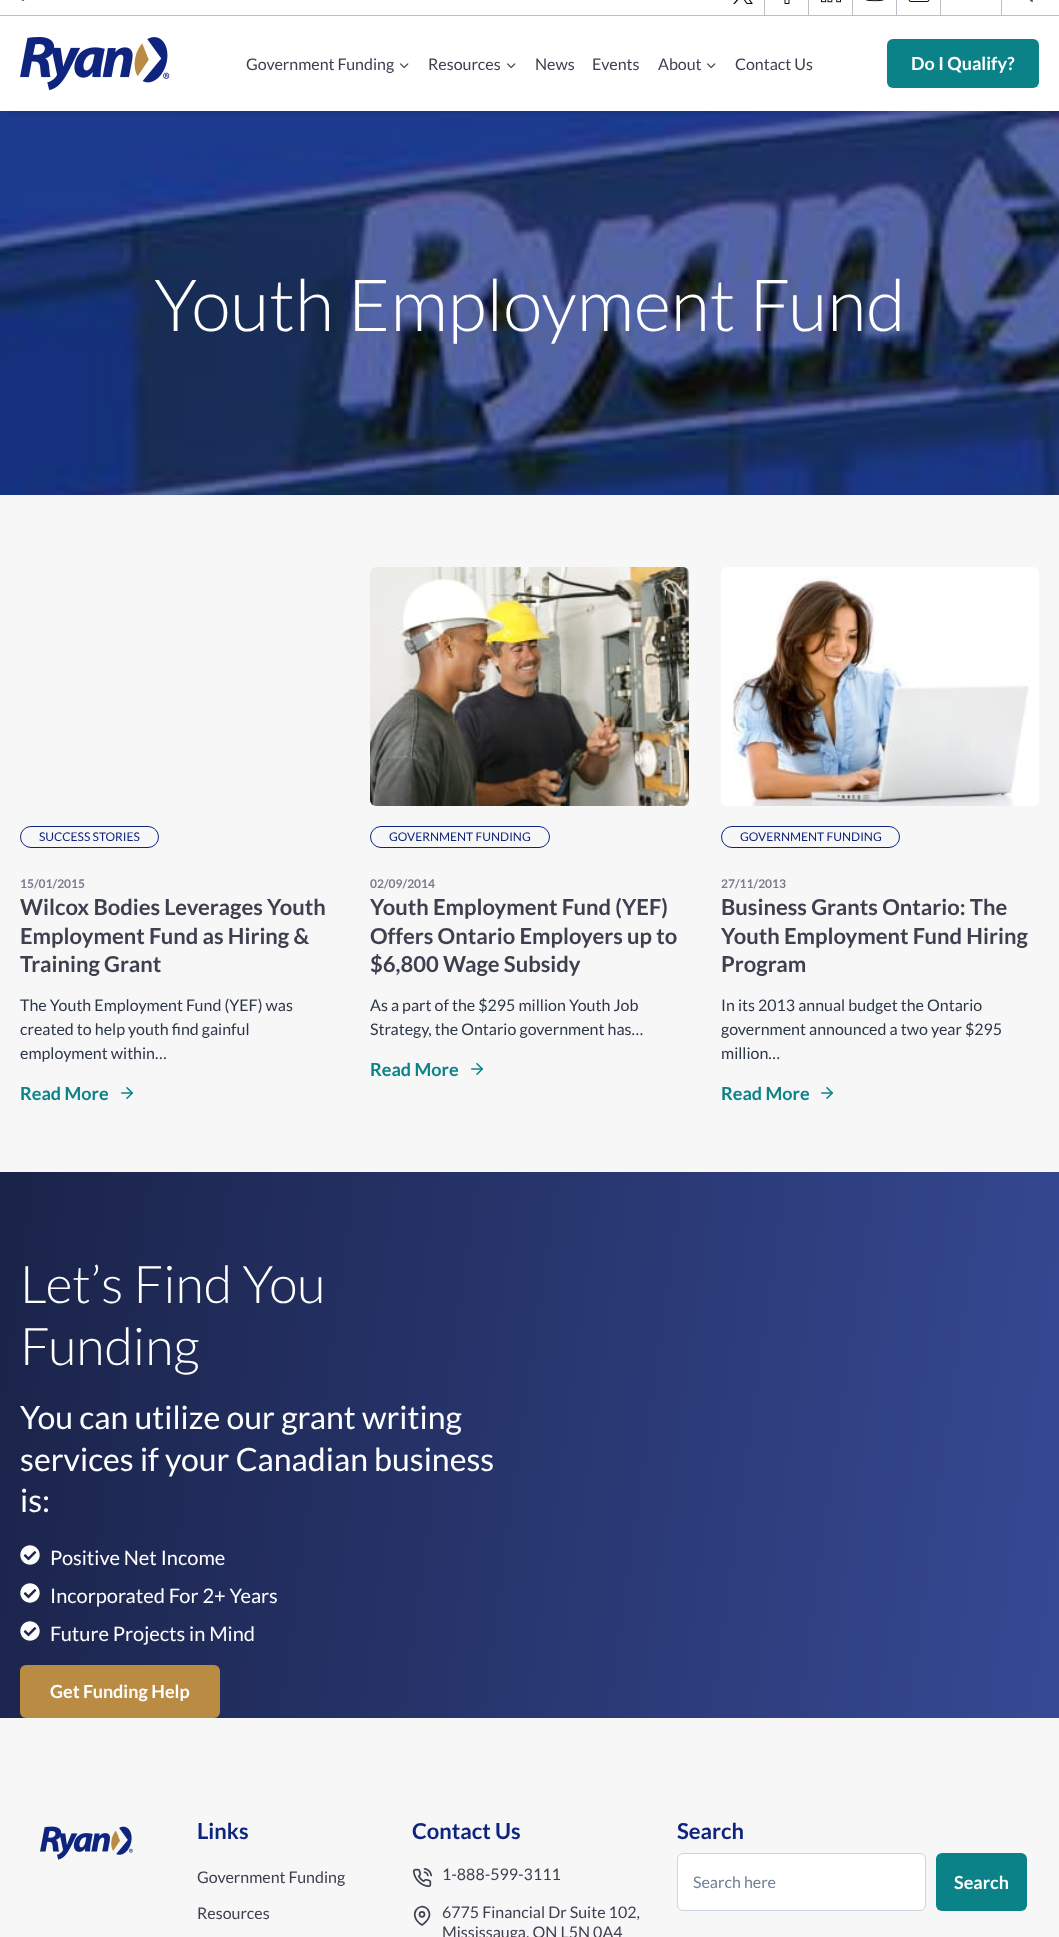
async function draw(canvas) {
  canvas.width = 1059;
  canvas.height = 1937;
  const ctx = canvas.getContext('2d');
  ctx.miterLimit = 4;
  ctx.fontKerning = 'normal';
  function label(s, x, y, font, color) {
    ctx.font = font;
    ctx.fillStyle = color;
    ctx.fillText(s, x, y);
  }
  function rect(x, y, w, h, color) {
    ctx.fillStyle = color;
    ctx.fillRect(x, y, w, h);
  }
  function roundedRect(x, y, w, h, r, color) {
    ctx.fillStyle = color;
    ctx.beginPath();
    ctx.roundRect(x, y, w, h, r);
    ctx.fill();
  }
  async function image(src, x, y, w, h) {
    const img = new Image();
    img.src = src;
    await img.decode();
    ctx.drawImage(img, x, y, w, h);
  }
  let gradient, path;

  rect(0, 0, 1059, 1937, '#f7f7f7');
  rect(0, 16, 1059, 95, '#fff');
  rect(0, 0, 1059, 15, '#fff');
  rect(0, 15, 1059, 1, '#bdbec7');
  await image('assets/img1.png', 21, 0, 4, 1);
  rect(764, 0, 1, 15, '#bdbec7');
  await image('assets/img2.png', 733, 0, 20, 4);
  rect(808, 0, 1, 15, '#bdbec7');
  await image('assets/img3.png', 784, 0, 6, 4);
  rect(852, 0, 1, 15, '#bdbec7');
  await image('assets/img4.png', 821, 0, 20, 3);
  rect(896, 0, 1, 15, '#bdbec7');
  await image('assets/img5.png', 866, 0, 18, 2);
  rect(940, 0, 1, 15, '#bdbec7');
  await image('assets/img6.png', 908, 0, 22, 2);
  rect(1001, 0, 1, 15, '#bdbec7');
  await image('assets/img7.png', 1029, 0, 4, 2);
  await image('assets/img10.png', 0, 111, 1059, 384);
  ctx.save();
  ctx.beginPath();
  ctx.rect(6, 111, 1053, 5);
  ctx.clip();
  ctx.fillStyle = '#0000001a';
  ctx.filter = 'blur(2.5px)';
  ctx.beginPath();
  ctx.rect(8, 19, 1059, 95);
  ctx.fill();
  ctx.filter = 'none';
  ctx.restore();
  await image('assets/img8.png', 20, 37, 150, 54);
  label('Government Funding', 246, 70, '16px Lato', '#3e4050');
  await image('assets/img9.png', 400, 63, 9, 6);
  label('Resources', 428, 70, '16px Lato', '#3e4050');
  await image('assets/img9.png', 507, 63, 9, 6);
  label('News', 535, 70, '16px Lato', '#3e4050');
  label('Events', 592, 70, '16px Lato', '#3e4050');
  label('About', 658, 70, '16px Lato', '#3e4050');
  await image('assets/img9.png', 707, 63, 9, 6);
  label('Contact Us', 735, 70, '16px Lato', '#3e4050');
  roundedRect(887, 39, 152, 49, 6, '#0a8287');
  label('Do I Qualify?', 911, 70, 'bold 18px Lato', '#fff');
  label('Youth Employment Fund', 154, 331, '300 72px Lato', '#fff');
  ctx.beginPath();
  ctx.roundRect(20.5, 826.5, 138, 21, 10.5);
  ctx.strokeStyle = '#0e247e';
  ctx.stroke();
  label('SUCCESS STORIES', 39, 841, '12px Lato', '#0e247e');
  label('15/01/2015', 20, 888, 'bold 12px Lato', '#7a7c8e');
  label('Wilcox Bodies Leverages Youth', 20, 915, 'bold 22px Lato', '#3e4050');
  label('Employment Fund as Hiring &', 20, 944, 'bold 22px Lato', '#3e4050');
  label('Training Grant', 20, 972, 'bold 22px Lato', '#3e4050');
  label('The Youth Employment Fund (YEF) was', 20, 1011, '16px Lato', '#2d3748');
  label('created to help youth find gainful', 20, 1035, '16px Lato', '#2d3748');
  label('employment within…', 20, 1059, '16px Lato', '#2d3748');
  label('Read More', 20, 1100, 'bold 18px Lato', '#0a8287');
  await image('assets/img11.png', 121, 1087, 12, 12);
  await image('assets/img12.png', 370, 567, 319, 239);
  ctx.beginPath();
  ctx.roundRect(370.5, 826.5, 179, 21, 10.5);
  ctx.stroke();
  label('GOVERNMENT FUNDING', 389, 841, '12px Lato', '#0e247e');
  label('02/09/2014', 370, 888, 'bold 12px Lato', '#7a7c8e');
  label('Youth Employment Fund (YEF)', 370, 915, 'bold 22px Lato', '#3e4050');
  label('Offers Ontario Employers up to', 370, 944, 'bold 22px Lato', '#3e4050');
  label('$6,800 Wage Subsidy', 370, 972, 'bold 22px Lato', '#3e4050');
  label('As a part of the $295 million Youth Job', 370, 1011, '16px Lato', '#2d3748');
  label('Strategy, the Ontario government has…', 370, 1035, '16px Lato', '#2d3748');
  label('Read More', 370, 1076, 'bold 18px Lato', '#0a8287');
  await image('assets/img11.png', 471, 1063, 12, 12);
  await image('assets/img13.png', 721, 567, 318, 239);
  ctx.beginPath();
  ctx.roundRect(721.5, 826.5, 178, 21, 10.5);
  ctx.stroke();
  label('GOVERNMENT FUNDING', 740, 841, '12px Lato', '#0e247e');
  label('27/11/2013', 721, 888, 'bold 12px Lato', '#7a7c8e');
  label('Business Grants Ontario: The', 721, 915, 'bold 22px Lato', '#3e4050');
  label('Youth Employment Fund Hiring', 721, 944, 'bold 22px Lato', '#3e4050');
  label('Program', 721, 972, 'bold 22px Lato', '#3e4050');
  label('In its 2013 annual budget the Ontario', 721, 1011, '16px Lato', '#2d3748');
  label('government announced a two year $295', 721, 1035, '16px Lato', '#2d3748');
  label('million…', 721, 1059, '16px Lato', '#2d3748');
  label('Read More', 721, 1100, 'bold 18px Lato', '#0a8287');
  await image('assets/img11.png', 821, 1087, 12, 12);
  gradient = ctx.createLinearGradient(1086, 1523, -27, 1367);
  gradient.addColorStop(0, '#364994');
  gradient.addColorStop(1, '#1a2349');
  ctx.fillStyle = gradient;
  ctx.fillRect(0, 1172, 1059, 546);
  label('Let’s Find You', 20, 1303, '300 52px Lato', '#fff');
  label('Funding', 20, 1365, '300 52px Lato', '#fff');
  label('You can utilize our grant writing', 20, 1429, '32px Lato', '#fff');
  label('services if your Canadian business', 20, 1471, '32px Lato', '#fff');
  label('is:', 20, 1512, '32px Lato', '#fff');
  await image('assets/img14.png', 20, 1545, 20, 20);
  label('Positive Net Income', 50, 1565, '20px Lato', '#fff');
  await image('assets/img15.png', 20, 1583, 20, 20);
  label('Incorporated For 2+ Years', 50, 1603, '20px Lato', '#fff');
  await image('assets/img16.png', 20, 1621, 20, 20);
  label('Future Projects in Mind', 50, 1641, '20px Lato', '#fff');
  roundedRect(20, 1665, 200, 53, 6, '#b98b43');
  label('Get Funding Help', 50, 1698, 'bold 18px Lato', '#fff');
  await image('assets/img17.png', 40, 1826, 93, 34);
  label('Links', 197, 1839, 'bold 22px Lato', '#0e247e');
  label('Government Funding', 197, 1883, '16px Lato', '#3e4050');
  label('Resources', 197, 1919, '16px Lato', '#3e4050');
  label('Contact Us', 412, 1839, 'bold 22px Lato', '#0e247e');
  await image('assets/img18.png', 412, 1868, 20, 20);
  label('1-888-599-3111', 442, 1880, '16px Lato', '#3e4050');
  path = new Path2D('M429.5 1914.5C429.5 1920 422 1925 422 1925C406.5 1915 419.5 1901 427.5 1909C428.5 1910.5 429.5 1912.5 429.5 1914.5Z');
  ctx.strokeStyle = '#3e4050';
  ctx.lineWidth = 1.7;
  ctx.lineCap = 'round';
  ctx.lineJoin = 'round';
  ctx.stroke(path);
  ctx.beginPath();
  ctx.arc(422, 1914.3, 2.5, 0, 2 * Math.PI);
  ctx.stroke();
  label('6775 Financial Dr Suite 102,', 442, 1918, '16px Lato', '#3e4050');
  label('Mississauga, ON L5N 0A4', 442, 1938, '16px Lato', '#3e4050');
  label('Search', 677, 1839, 'bold 22px Lato', '#0e247e');
  ctx.fillStyle = '#fff';
  ctx.beginPath();
  ctx.roundRect(677.5, 1853.5, 248, 57, 5.5);
  ctx.fill();
  ctx.strokeStyle = '#cbd5e0';
  ctx.lineWidth = 1;
  ctx.lineJoin = 'miter';
  ctx.stroke();
  label('Search here', 693, 1888, '16px Lato', '#718096');
  roundedRect(936, 1853, 91, 58, 6, '#0a8287');
  label('Search', 954, 1889, 'bold 18px Lato', '#fff');
}

draw(document.querySelector('canvas'));
